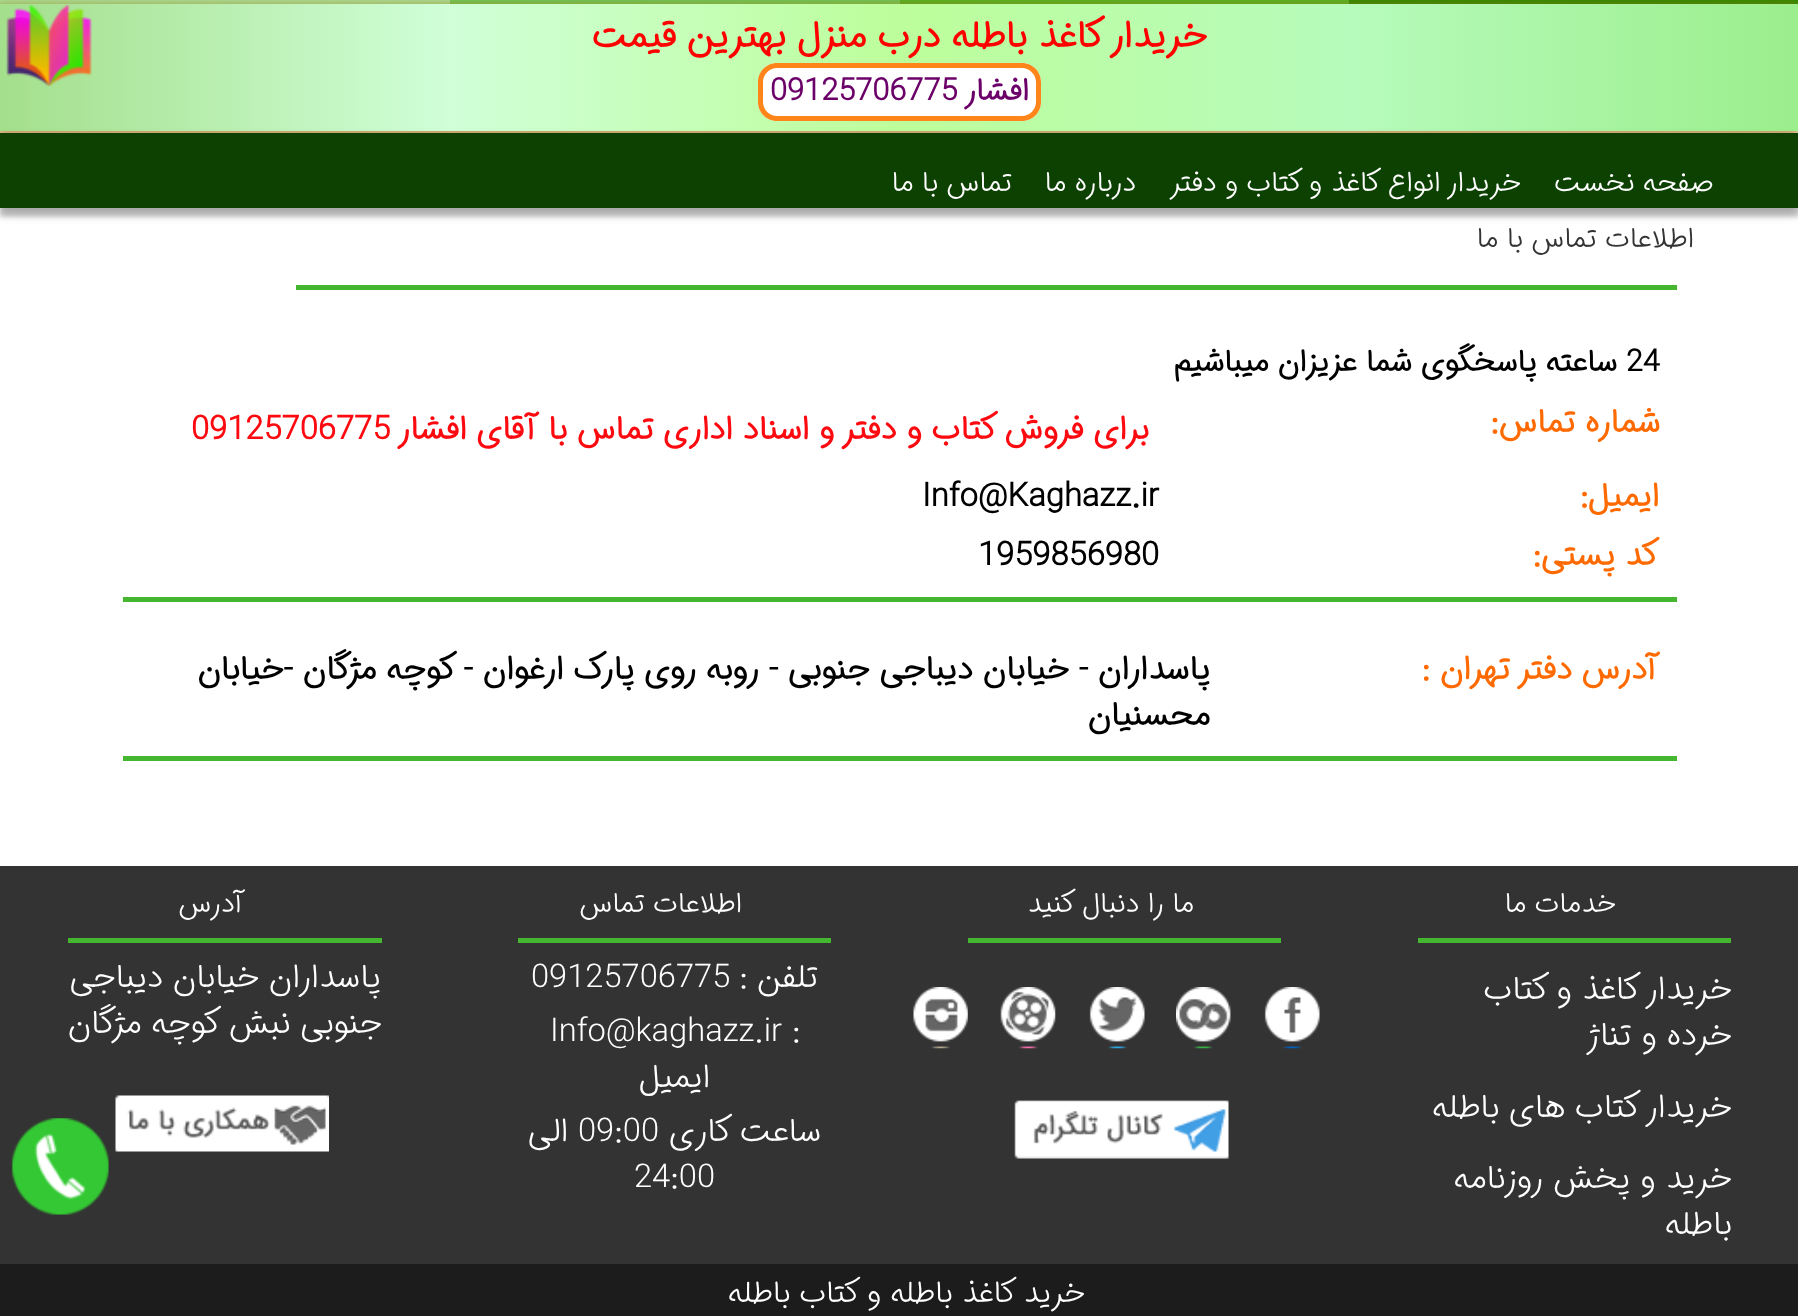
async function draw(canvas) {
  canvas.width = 1798;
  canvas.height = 1316;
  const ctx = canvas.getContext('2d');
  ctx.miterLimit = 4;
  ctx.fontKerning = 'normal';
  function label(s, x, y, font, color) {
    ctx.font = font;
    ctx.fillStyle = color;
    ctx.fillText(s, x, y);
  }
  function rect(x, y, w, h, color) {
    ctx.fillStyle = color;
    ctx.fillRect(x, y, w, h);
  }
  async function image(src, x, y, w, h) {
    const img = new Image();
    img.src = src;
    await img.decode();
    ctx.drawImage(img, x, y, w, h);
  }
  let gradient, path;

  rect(0, 0, 1798, 1316, '#fff');
  rect(1349, 0, 449, 4, '#248d01');
  rect(900, 0, 449, 4, '#4cba27');
  rect(450, 0, 450, 4, '#6acf5e');
  rect(0, 0, 450, 4, '#a6e8a2');
  ctx.fillStyle = '#ab6b07ab';
  ctx.filter = 'blur(6px)';
  ctx.beginPath();
  ctx.rect(-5, 4, 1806, 134);
  ctx.fill();
  ctx.filter = 'none';
  gradient = ctx.createLinearGradient(0, 67, 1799, 67);
  gradient.addColorStop(0, '#a4df8c');
  gradient.addColorStop(0.25, '#d0ffd8');
  gradient.addColorStop(0.5, '#bdfe9b');
  gradient.addColorStop(0.75, '#b7fbbc');
  gradient.addColorStop(1, '#9bee8c');
  ctx.fillStyle = gradient;
  ctx.fillRect(0, 4, 1798, 127);
  ctx.direction = 'rtl';
  label('خریدار کاغذ باطله درب منزل بهترین قیمت', 1207, 47, 'bold 36.75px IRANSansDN', '#f00');
  ctx.fillStyle = '#fff';
  ctx.beginPath();
  ctx.roundRect(957, 63, 84, 58, [0, 19, 19, 0]);
  ctx.fill();
  ctx.fillStyle = '#ff841a';
  path = new Path2D('M957 63H1022C1033 63 1041 72 1041 82V102C1041 112 1033 121 1022 121H957ZM957 68H1022C1030 68 1036 75 1036 82V102C1036 109 1030 116 1022 116H957Z');
  ctx.fill(path, 'evenodd');
  label('افشار', 1029, 100, 'bold 30.75px IRANSansDN', '#6c0069');
  ctx.fillStyle = '#fff';
  ctx.beginPath();
  ctx.roundRect(758, 63, 199, 58, [19, 0, 0, 19]);
  ctx.fill();
  ctx.fillStyle = '#ff841a';
  path = new Path2D('M777 63H957V121H777C766 121 758 112 758 102V82C758 72 766 63 777 63ZM777 68H957V116H777C769 116 763 109 763 102V82C763 75 769 68 777 68Z');
  ctx.fill(path, 'evenodd');
  ctx.direction = 'ltr';
  label('09125706775', 770, 100, 'bold 30.75px IRANSansDN', '#6c0069');
  await image('assets/img1.png', 6, 5, 86, 81);
  ctx.fillStyle = '#0000003b';
  ctx.filter = 'blur(5px)';
  ctx.beginPath();
  ctx.rect(0, 138, 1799, 76);
  ctx.fill();
  ctx.filter = 'none';
  ctx.fillStyle = '#00000029';
  ctx.filter = 'blur(2px)';
  ctx.beginPath();
  ctx.rect(0, 142, 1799, 75);
  ctx.fill();
  ctx.filter = 'none';
  rect(0, 133, 1798, 75, '#0c4102');
  ctx.direction = 'rtl';
  label('صفحه نخست', 1713, 191, '300 28px IRANSansDN', '#fff');
  label('خریدار انواع کاغذ و کتاب و دفتر', 1521, 191, '300 28px IRANSansDN', '#fff');
  label('درباره ما', 1136, 191, '300 28px IRANSansDN', '#fff');
  label('تماس با ما', 1012, 191, '300 28px IRANSansDN', '#fff');
  label('اطلاعات تماس با ما', 1694, 247, '300 28px IRANSansDN', '#333');
  rect(296, 285, 1381, 5, '#44b630');
  ctx.direction = 'ltr';
  label('24', 1626, 371, 'bold 30.3px IRANSansDN', '#000');
  ctx.direction = 'rtl';
  label('ساعته پاسخگوی شما عزیزان میباشیم', 1617, 371, 'bold 30.3px IRANSansDN', '#000');
  label('شماره تماس:', 1660, 432, 'bold 32.7px IRANSansDN', '#ff6a00');
  label('برای فروش کتاب و دفتر و اسناد اداری تماس با آقای افشار', 1149, 439, 'bold 32.7px IRANSansDN', '#fc0a10');
  ctx.direction = 'ltr';
  label('09125706775', 191, 439, 'bold 32.7px IRANSansDN', '#fc0a10');
  ctx.direction = 'rtl';
  label('ایمیل:', 1659, 506, 'bold 32.7px IRANSansDN', '#ff6a00');
  ctx.direction = 'ltr';
  label('Info@Kaghazz.ir', 922, 506, 'bold 32.7px IRANSansDN', '#000');
  ctx.direction = 'rtl';
  label('کد پستی:', 1659, 565, 'bold 32.7px IRANSansDN', '#ff6a00');
  ctx.direction = 'ltr';
  label('1959856980', 978, 565, 'bold 32.7px IRANSansDN', '#000');
  rect(123, 597, 1554, 5, '#44b630');
  ctx.direction = 'rtl';
  label('آدرس', 1659, 679, 'bold 32.7px IRANSansDN', '#ff6a00');
  label('دفتر تهران :', 1572, 679, 'bold 32.7px IRANSansDN', '#ff6a00');
  label('پاسداران - خیابان دیباجی جنوبی - روبه روی پارک ارغوان - کوچه مژگان -خیابان', 1210, 679, 'bold 32.7px IRANSansDN', '#000');
  label('محسنیان', 1210, 725, 'bold 32.7px IRANSansDN', '#000');
  rect(123, 756, 1554, 5, '#44b630');
  rect(0, 866, 1798, 398, '#333');
  label('خدمات ما', 1616, 912, '300 28px IRANSansDN', '#fff');
  rect(1418, 938, 313, 5, '#44b630');
  label('خریدار کاغذ و کتاب', 1732, 999, '300 32.7px IRANSansDN', '#fff');
  label('خرده و تناژ', 1732, 1045, '300 32.7px IRANSansDN', '#fff');
  label('خریدار کتاب های باطله', 1732, 1117, '300 32.7px IRANSansDN', '#fff');
  label('خرید و پخش روزنامه', 1732, 1188, '300 32.7px IRANSansDN', '#fff');
  label('باطله', 1732, 1234, '300 32.7px IRANSansDN', '#fff');
  label('ما را دنبال کنید', 1194, 912, '300 28px IRANSansDN', '#fff');
  rect(968, 938, 313, 5, '#44b630');
  await image('assets/img2.png', 1264, 987, 56, 62);
  await image('assets/img3.png', 1176, 987, 55, 62);
  await image('assets/img4.png', 1089, 987, 56, 62);
  await image('assets/img5.png', 1000, 987, 56, 62);
  await image('assets/img6.png', 913, 987, 55, 62);
  await image('assets/img7.png', 1014, 1100, 215, 59);
  label('اطلاعات تماس', 742, 912, '300 28px IRANSansDN', '#fff');
  rect(518, 938, 313, 5, '#44b630');
  label('تلفن :', 818, 987, '300 32.7px IRANSansDN', '#fff');
  ctx.direction = 'ltr';
  label('09125706775', 531, 987, '300 32.7px IRANSansDN', '#fff');
  label('Info@kaghazz.ir :', 550, 1041, '300 32.7px IRANSansDN', '#fff');
  ctx.direction = 'rtl';
  label('ایمیل', 710, 1087, '300 32.7px IRANSansDN', '#fff');
  label('ساعت کاری', 821, 1141, '300 32.7px IRANSansDN', '#fff');
  ctx.direction = 'ltr';
  label('09:00', 578, 1141, '300 32.7px IRANSansDN', '#fff');
  ctx.direction = 'rtl';
  label('الی', 568, 1141, '300 32.7px IRANSansDN', '#fff');
  ctx.direction = 'ltr';
  label('24:00', 634, 1187, '300 32.7px IRANSansDN', '#fff');
  ctx.direction = 'rtl';
  label('آدرس', 245, 912, '300 28px IRANSansDN', '#fff');
  rect(68, 938, 314, 5, '#44b630');
  label('پاسداران خیابان دیباجی', 381, 987, '300 32.7px IRANSansDN', '#fff');
  label('جنوبی نبش کوچه مژگان', 382, 1033, '300 32.7px IRANSansDN', '#fff');
  await image('assets/img8.png', 115, 1095, 214, 57);
  await image('assets/img9.png', 11, 1118, 98, 97);
  rect(0, 1264, 1798, 52, '#1d1c1c');
  label('خرید کاغذ باطله و کتاب باطله', 1085, 1302, '300 30.3px IRANSansDN', '#fff');
}

draw(document.querySelector('canvas'));
